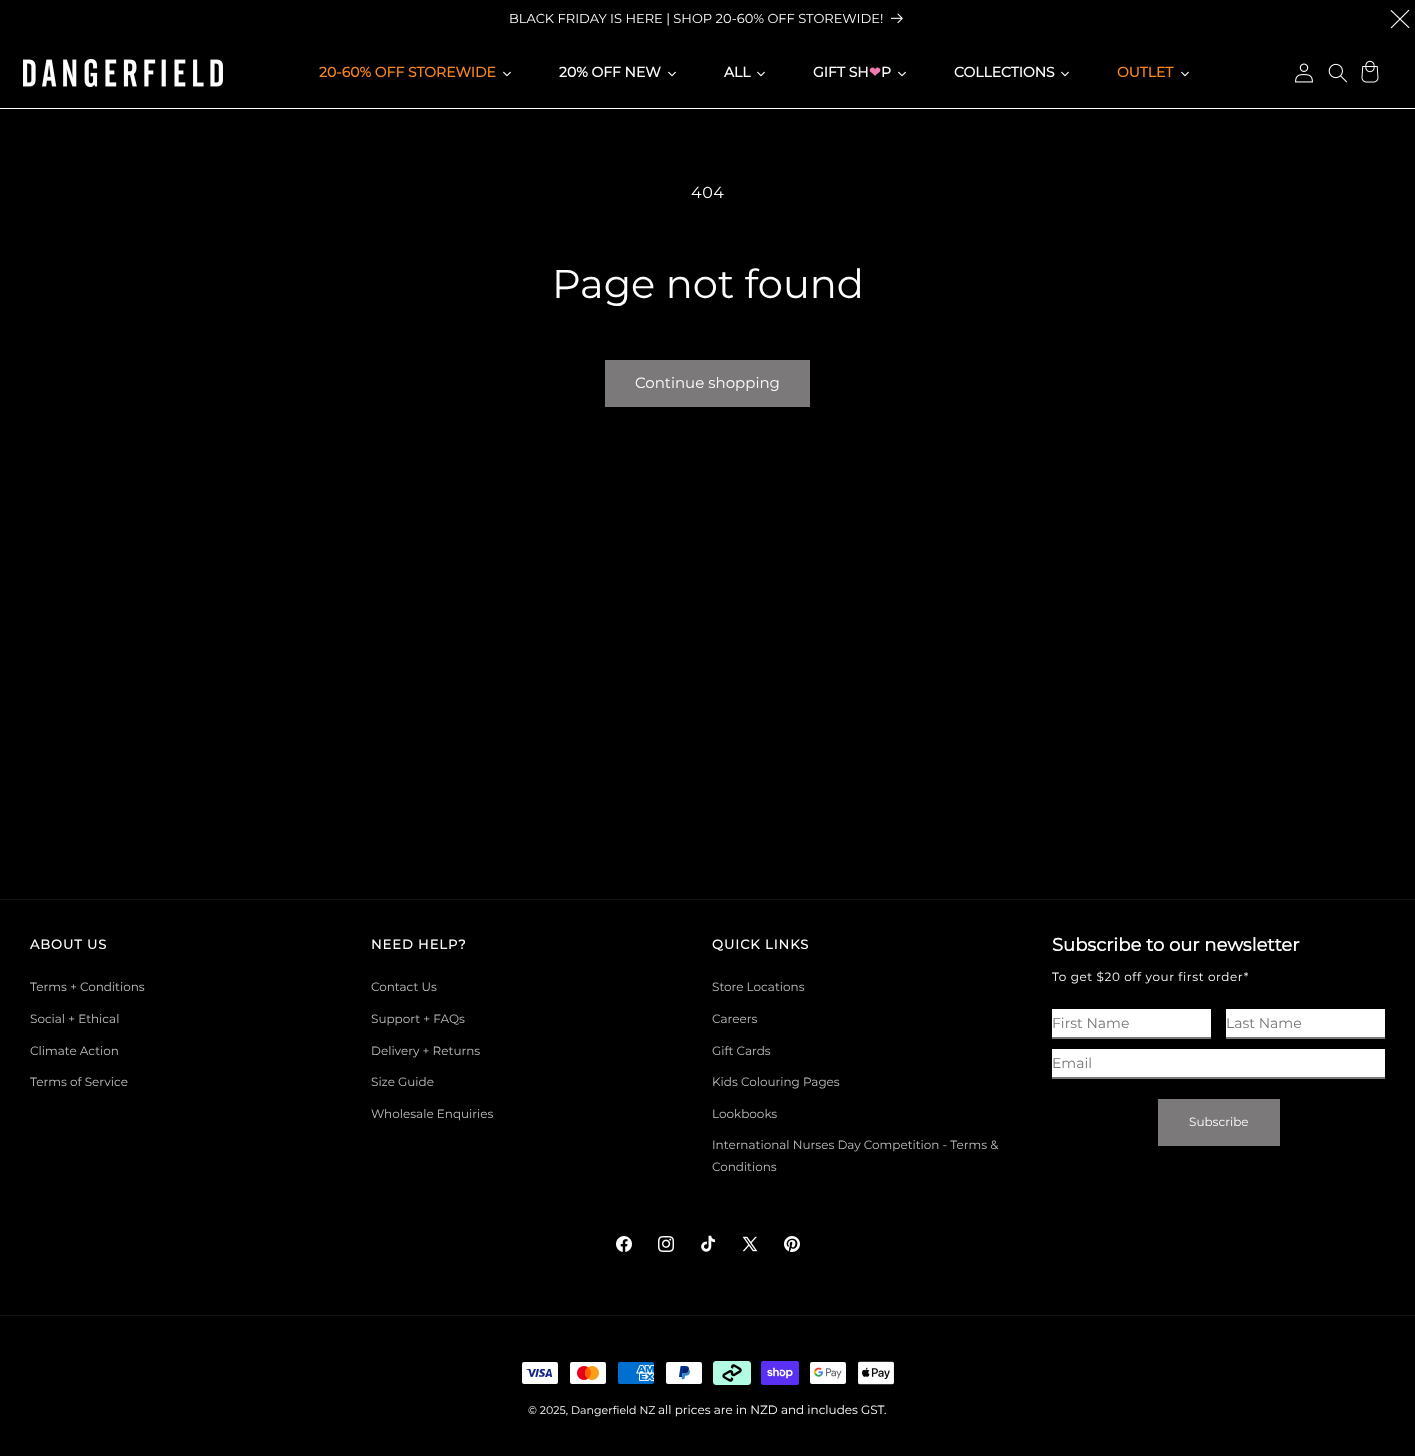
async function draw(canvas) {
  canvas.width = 1415;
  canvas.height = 1456;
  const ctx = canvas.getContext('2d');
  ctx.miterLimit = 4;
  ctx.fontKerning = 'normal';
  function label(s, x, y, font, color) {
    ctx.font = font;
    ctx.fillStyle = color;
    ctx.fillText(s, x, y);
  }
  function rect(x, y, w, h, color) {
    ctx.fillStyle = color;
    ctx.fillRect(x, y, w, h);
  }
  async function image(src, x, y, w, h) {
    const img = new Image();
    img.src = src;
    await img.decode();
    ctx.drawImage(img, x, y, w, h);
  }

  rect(0, 0, 1415, 1456, '#000');
  label('BLACK FRIDAY IS HERE | SHOP 20-60% OFF STOREWIDE!', 509, 23, '100 13px Montserrat', '#fff');
  await image('assets/img1.png', 891, 13, 12, 11);
  await image('assets/img2.png', 1390, 9, 20, 20);
  rect(0, 108, 1415, 1, '#fff');
  await image('assets/img3.png', 23, 59, 200, 28);
  label('20-60% OFF STOREWIDE', 319, 77, 'bold 14px Montserrat', '#f9871d');
  await image('assets/img4.png', 503, 71, 8, 6);
  label('20% OFF NEW', 559, 77, 'bold 14px Montserrat', '#fff');
  await image('assets/img4.png', 668, 71, 8, 6);
  label('ALL', 724, 77, 'bold 14px Montserrat', '#fff');
  await image('assets/img4.png', 757, 71, 8, 6);
  label('GIFT SH', 813, 77, 'bold 14px Montserrat', '#fff');
  label('❤︎', 869, 77, 'bold 14px DejaVu Sans', '#f47ab1');
  label('P', 881, 77, 'bold 14px Montserrat', '#fff');
  await image('assets/img4.png', 898, 71, 8, 6);
  label('COLLECTIONS', 954, 77, 'bold 14px Montserrat', '#fff');
  await image('assets/img4.png', 1061, 71, 8, 6);
  label('OUTLET', 1117, 77, 'bold 14px Montserrat', '#f9871d');
  await image('assets/img4.png', 1181, 71, 8, 6);
  await image('assets/img5.png', 1295, 63, 18, 20);
  await image('assets/img6.png', 1328, 63, 19, 20);
  await image('assets/img7.png', 1361, 60, 18, 23);
  ctx.letterSpacing = '0.6px';
  label('404', 691, 198, '100 16px Montserrat', '#fff');
  ctx.letterSpacing = '0px';
  label('Page not found', 552, 298, '100 40px Montserrat', '#fff');
  rect(605, 360, 205, 47, '#7b7979');
  label('Continue shopping', 635, 388, '100 15px Montserrat', '#fff');
  rect(0, 899, 1415, 1, '#141414');
  ctx.letterSpacing = '1px';
  label('ABOUT US', 30, 949, 'bold 13px Montserrat', '#fff');
  ctx.letterSpacing = '0px';
  label('Terms + Conditions', 30, 991, '100 12px Montserrat', '#bfbfbf');
  label('Social + Ethical', 30, 1023, '100 12px Montserrat', '#bfbfbf');
  label('Climate Action', 30, 1055, '100 12px Montserrat', '#bfbfbf');
  label('Terms of Service', 30, 1086, '100 12px Montserrat', '#bfbfbf');
  ctx.letterSpacing = '1px';
  label('NEED HELP?', 371, 949, 'bold 13px Montserrat', '#fff');
  ctx.letterSpacing = '0px';
  label('Contact Us', 371, 991, '100 12px Montserrat', '#bfbfbf');
  label('Support + FAQs', 371, 1023, '100 12px Montserrat', '#bfbfbf');
  label('Delivery + Returns', 371, 1055, '100 12px Montserrat', '#bfbfbf');
  label('Size Guide', 371, 1086, '100 12px Montserrat', '#bfbfbf');
  label('Wholesale Enquiries', 371, 1118, '100 12px Montserrat', '#bfbfbf');
  ctx.letterSpacing = '1px';
  label('QUICK LINKS', 712, 949, 'bold 13px Montserrat', '#fff');
  ctx.letterSpacing = '0px';
  label('Store Locations', 712, 991, '100 12px Montserrat', '#bfbfbf');
  label('Careers', 712, 1023, '100 12px Montserrat', '#bfbfbf');
  label('Gift Cards', 712, 1055, '100 12px Montserrat', '#bfbfbf');
  label('Kids Colouring Pages', 712, 1086, '100 12px Montserrat', '#bfbfbf');
  label('Lookbooks', 712, 1118, '100 12px Montserrat', '#bfbfbf');
  label('International Nurses Day Competition - Terms &', 712, 1149, '100 12px Montserrat', '#bfbfbf');
  label('Conditions', 712, 1171, '100 12px Montserrat', '#bfbfbf');
  label('Subscribe to our newsletter', 1052, 951, 'bold 18px Montserrat', '#fff');
  ctx.letterSpacing = '0.6px';
  label('To get $20 off your first order*', 1052, 981, '100 12px Montserrat', '#fff');
  rect(1052, 1009, 159, 28, '#fff');
  rect(1052, 1037, 159, 2, '#797979');
  ctx.letterSpacing = '0px';
  label('First Name', 1052, 1028, '100 14px Montserrat', '#757575');
  rect(1226, 1009, 159, 28, '#fff');
  rect(1226, 1037, 159, 2, '#797979');
  label('Last Name', 1226, 1028, '100 14px Montserrat', '#757575');
  rect(1052, 1049, 333, 28, '#fff');
  rect(1052, 1077, 333, 2, '#797979');
  label('Email', 1052, 1068, '100 14px Montserrat', '#757575');
  rect(1158, 1099, 122, 47, '#7b7979');
  label('Subscribe', 1189, 1126, '100 12px Montserrat', '#fff');
  await image('assets/img8.png', 616, 1236, 16, 16);
  await image('assets/img9.png', 658, 1236, 16, 16);
  await image('assets/img10.png', 701, 1235, 15, 17);
  await image('assets/img11.png', 742, 1236, 16, 16);
  await image('assets/img12.png', 784, 1236, 16, 16);
  rect(0, 1315, 1415, 1, '#141414');
  await image('assets/img13.png', 522, 1362, 36, 22);
  await image('assets/img14.png', 570, 1362, 36, 22);
  await image('assets/img15.png', 618, 1362, 36, 22);
  await image('assets/img16.png', 666, 1362, 36, 22);
  await image('assets/img17.png', 713, 1361, 38, 24);
  await image('assets/img18.png', 761, 1361, 38, 24);
  await image('assets/img19.png', 810, 1362, 36, 22);
  await image('assets/img20.png', 858, 1361, 36, 24);
  label('© 2025, Dangerfield NZ', 528, 1414, '100 11px Montserrat', '#fff');
  label('all prices are in NZD and includes GST.', 658, 1414, '100 12px Montserrat', '#fff');
}

draw(document.querySelector('canvas'));
